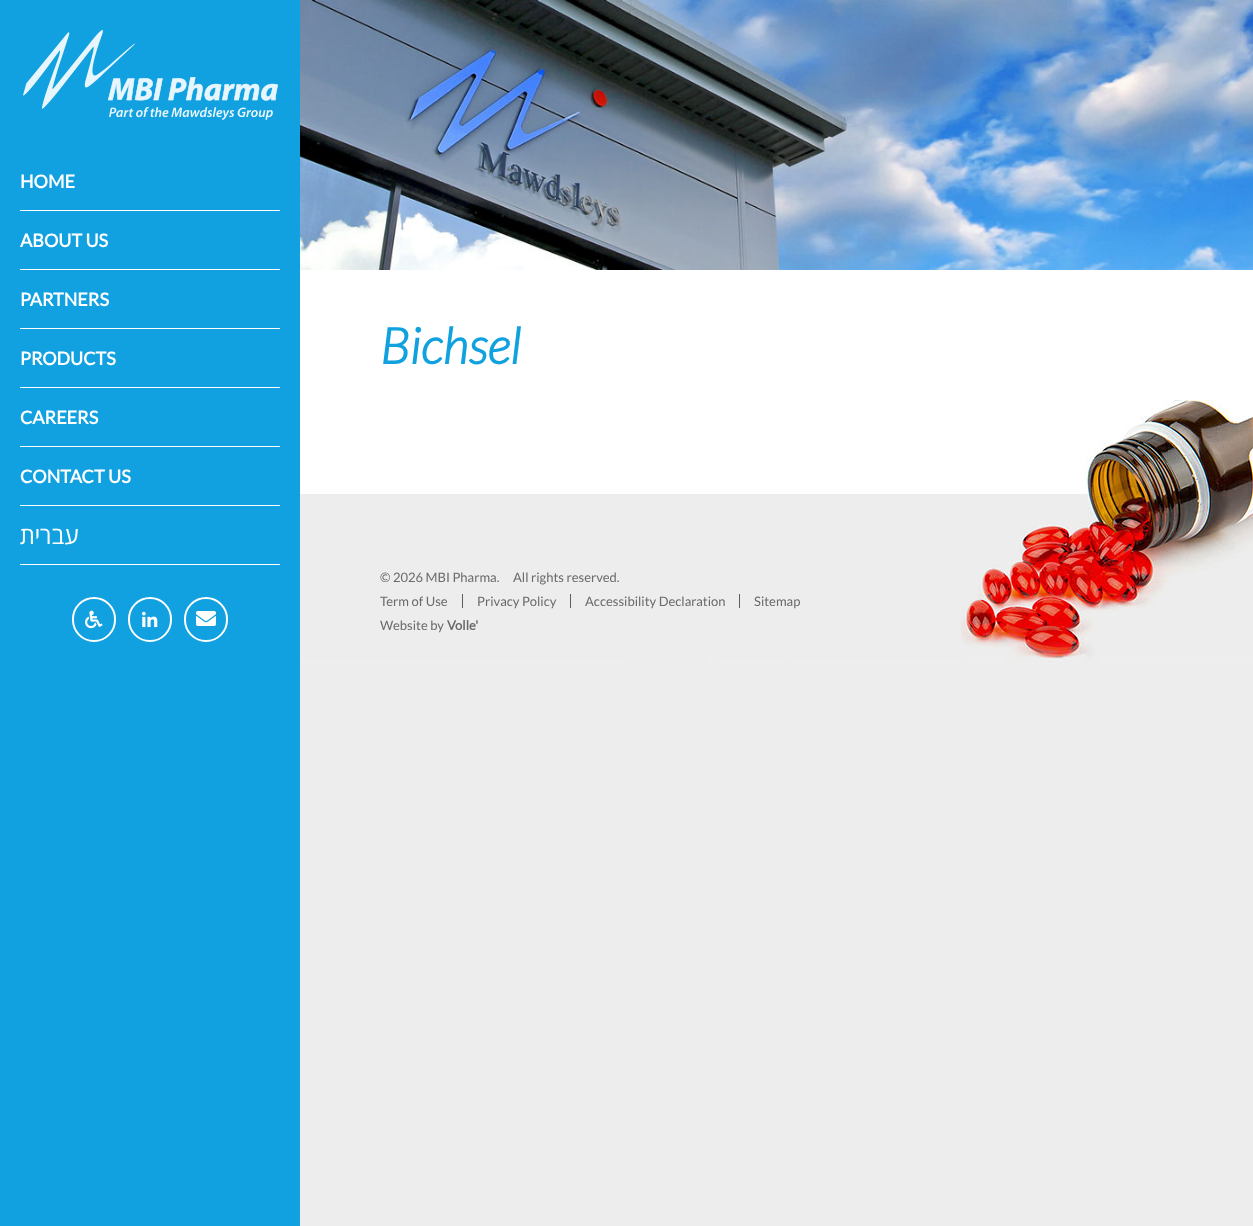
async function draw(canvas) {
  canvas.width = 1253;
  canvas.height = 1226;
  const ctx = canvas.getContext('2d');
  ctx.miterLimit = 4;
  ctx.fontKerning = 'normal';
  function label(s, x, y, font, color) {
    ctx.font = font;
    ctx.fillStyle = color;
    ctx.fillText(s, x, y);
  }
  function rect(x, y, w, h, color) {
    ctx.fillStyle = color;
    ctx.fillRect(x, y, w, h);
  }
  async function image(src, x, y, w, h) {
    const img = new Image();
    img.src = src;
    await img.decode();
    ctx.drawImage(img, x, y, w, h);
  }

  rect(0, 0, 1253, 1226, '#ededed');
  rect(0, 0, 300, 1226, '#11a1e0');
  await image('assets/img1.png', 23, 30, 255, 90);
  rect(20, 210, 260, 1, '#fff');
  label('HOME', 20, 188, 'bold 18px Lato', '#fff');
  rect(20, 269, 260, 1, '#fff');
  label('ABOUT US', 20, 247, 'bold 18px Lato', '#fff');
  rect(20, 328, 260, 1, '#fff');
  label('PARTNERS', 20, 306, 'bold 18px Lato', '#fff');
  rect(20, 387, 260, 1, '#fff');
  label('PRODUCTS', 20, 365, 'bold 18px Lato', '#fff');
  rect(20, 446, 260, 1, '#fff');
  label('CAREERS', 20, 424, 'bold 18px Lato', '#fff');
  rect(20, 505, 260, 1, '#fff');
  label('CONTACT US', 20, 483, 'bold 18px Lato', '#fff');
  rect(20, 564, 260, 1, '#fff');
  ctx.direction = 'rtl';
  label('עברית', 79, 544, '24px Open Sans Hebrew', '#fff');
  ctx.beginPath();
  ctx.roundRect(73, 598, 42, 43, 21);
  ctx.strokeStyle = '#fff';
  ctx.lineWidth = 2;
  ctx.stroke();
  await image('assets/img2.png', 85, 610, 18, 19);
  ctx.beginPath();
  ctx.roundRect(129, 598, 42, 43, 21);
  ctx.stroke();
  await image('assets/img3.png', 142, 611, 16, 17);
  ctx.beginPath();
  ctx.roundRect(185, 598, 42, 43, 21);
  ctx.stroke();
  await image('assets/img4.png', 196, 611, 20, 15);
  rect(300, 270, 953, 130, '#fff');
  await image('assets/img5.png', 300, 0, 953, 270);
  ctx.direction = 'ltr';
  label('Bichsel', 380, 364, 'italic bold 50px Lato', '#10a1df');
  await image('assets/img6.png', 300, 400, 953, 264);
  label('© 2026 MBI Pharma.', 380, 582, '13px Lato', '#6a6a6a');
  label('All rights reserved.', 513, 582, '13px Lato', '#6a6a6a');
  rect(462, 594, 1, 14, '#5e5e5e');
  label('Term of Use', 380, 606, '13px Lato', '#6a6a6a');
  rect(570, 594, 1, 14, '#5e5e5e');
  label('Privacy Policy', 477, 606, '13px Lato', '#6a6a6a');
  rect(739, 594, 1, 14, '#5e5e5e');
  label('Accessibility Declaration', 585, 606, '13px Lato', '#6a6a6a');
  label('Sitemap', 754, 606, '13px Lato', '#6a6a6a');
  label('Website by', 380, 630, '13px Lato', '#6a6a6a');
  label('Volle\'', 447, 630, 'bold 13px Lato', '#6a6a6a');
}

draw(document.querySelector('canvas'));
